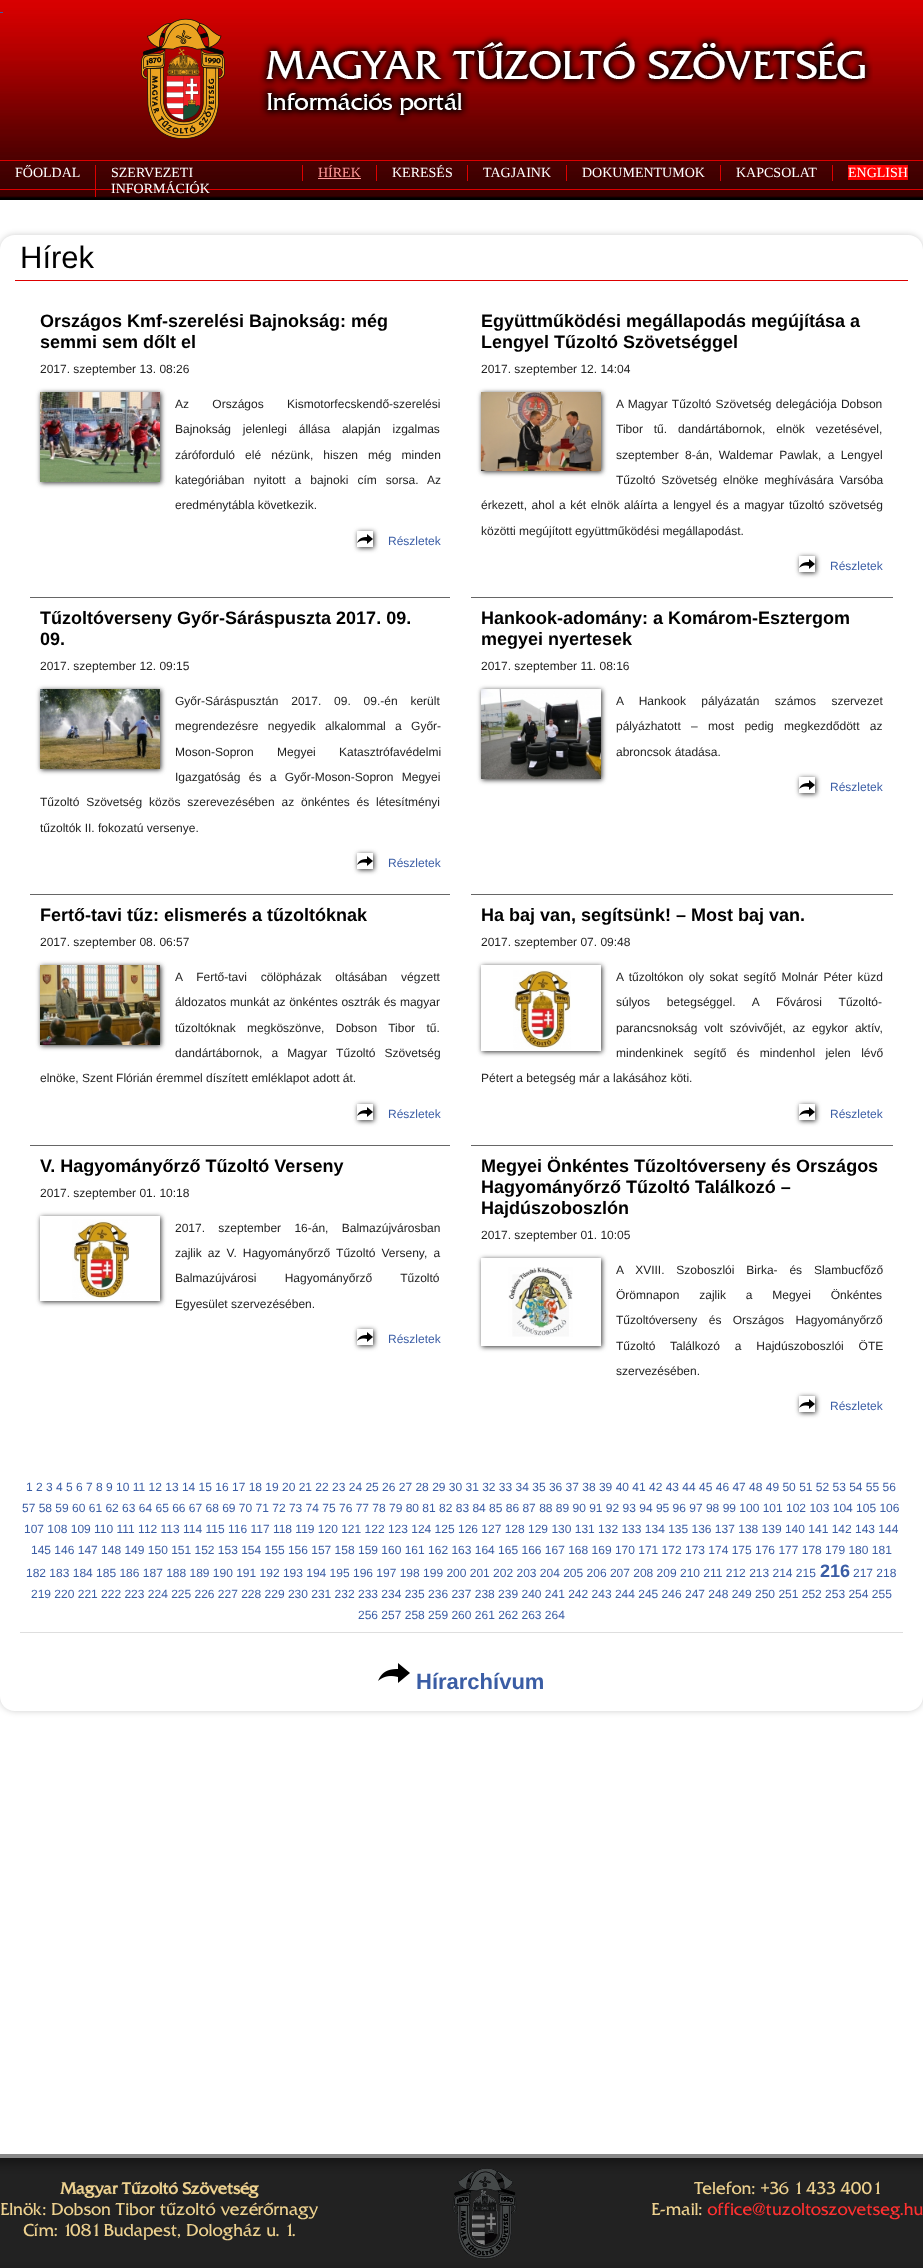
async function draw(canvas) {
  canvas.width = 923;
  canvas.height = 2268;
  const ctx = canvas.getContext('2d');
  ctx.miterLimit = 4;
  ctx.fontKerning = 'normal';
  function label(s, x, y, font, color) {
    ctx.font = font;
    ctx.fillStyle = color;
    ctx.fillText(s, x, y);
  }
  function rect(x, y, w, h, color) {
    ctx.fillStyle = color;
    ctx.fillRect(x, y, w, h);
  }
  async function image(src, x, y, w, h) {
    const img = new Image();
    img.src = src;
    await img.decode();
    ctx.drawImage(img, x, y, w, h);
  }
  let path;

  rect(0, 0, 923, 2268, '#fff');
  await image('assets/img1.png', 0, 0, 923, 200);
  rect(0, 12, 3, 1, '#3a5da5');
  await image('assets/img2.png', 141, 18, 732, 121);
  rect(0, 160, 923, 1, '#d00');
  rect(0, 189, 923, 1, '#d00');
  label('FŐOLDAL', 15, 177, '14px Liberation Serif', '#fff');
  rect(95, 165, 1, 32, '#d00');
  label('SZERVEZETI', 111, 177, '14px Liberation Serif', '#fff');
  label('INFORMÁCIÓK', 111, 193, '14px Liberation Serif', '#fff');
  rect(302, 165, 1, 16, '#d00');
  label('HÍREK', 318, 177, '14px Liberation Serif', '#f99');
  rect(318, 178, 43, 1, '#f99');
  rect(376, 165, 1, 16, '#d00');
  label('KERESÉS', 392, 177, '14px Liberation Serif', '#fff');
  rect(467, 165, 1, 16, '#d00');
  label('TAGJAINK', 483, 177, '14px Liberation Serif', '#fff');
  rect(566, 165, 1, 16, '#d00');
  label('DOKUMENTUMOK', 582, 177, '14px Liberation Serif', '#fff');
  rect(720, 165, 1, 16, '#d00');
  label('KAPCSOLAT', 736, 177, '14px Liberation Serif', '#fff');
  rect(832, 165, 1, 16, '#d00');
  rect(848, 165, 60, 15, '#f00');
  label('ENGLISH', 848, 177, '14px Liberation Serif', '#fff');
  ctx.save();
  path = new Path2D('M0 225H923V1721H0ZM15 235H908C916.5 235 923 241.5 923 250V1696C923 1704.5 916.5 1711 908 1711H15C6.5 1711 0 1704.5 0 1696V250C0 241.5 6.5 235 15 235Z');
  ctx.clip(path, 'evenodd');
  ctx.fillStyle = '#00000033';
  ctx.filter = 'blur(3px)';
  ctx.beginPath();
  ctx.roundRect(0, 235, 923, 1476, 15);
  ctx.fill();
  ctx.filter = 'none';
  ctx.restore();
  rect(15, 280, 893, 1, '#d00');
  label('Hírek', 20, 268, '31px Liberation Sans', '#000');
  rect(30, 597, 420, 1, '#666');
  label('Országos Kmf-szerelési Bajnokság: még', 40, 327, 'bold 18px Liberation Sans', '#000');
  label('semmi sem dőlt el', 40, 348, 'bold 18px Liberation Sans', '#000');
  label('2017. szeptember 13. 08:26', 40, 373, '12px Liberation Sans', '#222');
  ctx.fillStyle = '#333';
  ctx.filter = 'blur(2.5px)';
  ctx.beginPath();
  ctx.rect(41, 393, 120, 90);
  ctx.fill();
  ctx.filter = 'none';
  await image('assets/img3.png', 40, 392, 120, 90);
  ctx.wordSpacing = '20px';
  label('Az Országos Kismotorfecskendő-szerelési', 175, 408, '12px Liberation Sans', '#222');
  ctx.wordSpacing = '8.5px';
  label('Bajnokság jelenlegi állása alapján izgalmas', 175, 433, '12px Liberation Sans', '#222');
  ctx.wordSpacing = '6.75px';
  label('záróforduló elé nézünk, hiszen még minden', 175, 459, '12px Liberation Sans', '#222');
  ctx.wordSpacing = '5.75px';
  label('kategóriában nyitott a bajnoki cím sorsa. Az', 175, 484, '12px Liberation Sans', '#222');
  ctx.wordSpacing = '0px';
  label('eredménytábla következik.', 175, 509, '12px Liberation Sans', '#222');
  ctx.save();
  path = new Path2D('M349 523H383V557H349ZM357 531H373V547H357Z');
  ctx.clip(path, 'evenodd');
  ctx.fillStyle = '#333';
  ctx.filter = 'blur(2.5px)';
  ctx.beginPath();
  ctx.rect(358, 532, 16, 16);
  ctx.fill();
  ctx.filter = 'none';
  ctx.restore();
  await image('assets/img4.png', 357, 534, 16, 10);
  label('Részletek', 388, 545, '12px Liberation Sans', '#3a5da5');
  rect(471, 597, 422, 1, '#666');
  label('Együttműködési megállapodás megújítása a', 481, 327, 'bold 18px Liberation Sans', '#000');
  label('Lengyel Tűzoltó Szövetséggel', 481, 348, 'bold 18px Liberation Sans', '#000');
  label('2017. szeptember 12. 14:04', 481, 373, '12px Liberation Sans', '#222');
  ctx.fillStyle = '#333';
  ctx.filter = 'blur(2.5px)';
  ctx.beginPath();
  ctx.rect(482, 393, 120, 79);
  ctx.fill();
  ctx.filter = 'none';
  await image('assets/img5.png', 481, 392, 120, 79);
  ctx.wordSpacing = '1px';
  label('A Magyar Tűzoltó Szövetség delegációja Dobson', 616, 408, '12px Liberation Sans', '#222');
  ctx.wordSpacing = '7.5px';
  label('Tibor tű. dandártábornok, elnök vezetésével,', 616, 433, '12px Liberation Sans', '#222');
  ctx.wordSpacing = '3px';
  label('szeptember 8-án, Waldemar Pawlak, a Lengyel', 616, 459, '12px Liberation Sans', '#222');
  ctx.wordSpacing = '2.5px';
  label('Tűzoltó Szövetség elnöke meghívására Varsóba', 616, 484, '12px Liberation Sans', '#222');
  ctx.wordSpacing = '1.25px';
  label('érkezett, ahol a két elnök aláírta a lengyel és a magyar tűzoltó szövetség', 481, 509, '12px Liberation Sans', '#222');
  ctx.wordSpacing = '0px';
  label('közötti megújított együttműködési megállapodást.', 481, 535, '12px Liberation Sans', '#222');
  ctx.save();
  path = new Path2D('M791 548H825V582H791ZM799 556H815V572H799Z');
  ctx.clip(path, 'evenodd');
  ctx.fillStyle = '#333';
  ctx.filter = 'blur(2.5px)';
  ctx.beginPath();
  ctx.rect(800, 557, 16, 16);
  ctx.fill();
  ctx.filter = 'none';
  ctx.restore();
  await image('assets/img4.png', 799, 559, 16, 10);
  label('Részletek', 830, 570, '12px Liberation Sans', '#3a5da5');
  rect(30, 894, 420, 1, '#666');
  label('Tűzoltóverseny Győr-Sáráspuszta 2017. 09.', 40, 624, 'bold 18px Liberation Sans', '#000');
  label('09.', 40, 645, 'bold 18px Liberation Sans', '#000');
  label('2017. szeptember 12. 09:15', 40, 670, '12px Liberation Sans', '#222');
  ctx.fillStyle = '#333';
  ctx.filter = 'blur(2.5px)';
  ctx.beginPath();
  ctx.rect(41, 690, 120, 80);
  ctx.fill();
  ctx.filter = 'none';
  await image('assets/img6.png', 40, 689, 120, 80);
  ctx.wordSpacing = '9.5px';
  label('Győr-Sáráspusztán 2017. 09. 09.-én került', 175, 705, '12px Liberation Sans', '#222');
  ctx.wordSpacing = '6px';
  label('megrendezésre negyedik alkalommal a Győr-', 175, 730, '12px Liberation Sans', '#222');
  ctx.wordSpacing = '20px';
  label('Moson-Sopron Megyei Katasztrófavédelmi', 175, 756, '12px Liberation Sans', '#222');
  ctx.wordSpacing = '5px';
  label('Igazgatóság és a Győr-Moson-Sopron Megyei', 175, 781, '12px Liberation Sans', '#222');
  ctx.wordSpacing = '3.5px';
  label('Tűzoltó Szövetség közös szerevezésében az önkéntes és létesítményi', 40, 806, '12px Liberation Sans', '#222');
  ctx.wordSpacing = '0px';
  label('tűzoltók II. fokozatú versenye.', 40, 832, '12px Liberation Sans', '#222');
  ctx.save();
  path = new Path2D('M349 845H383V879H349ZM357 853H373V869H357Z');
  ctx.clip(path, 'evenodd');
  ctx.fillStyle = '#333';
  ctx.filter = 'blur(2.5px)';
  ctx.beginPath();
  ctx.rect(358, 854, 16, 16);
  ctx.fill();
  ctx.filter = 'none';
  ctx.restore();
  await image('assets/img4.png', 357, 856, 16, 10);
  label('Részletek', 388, 867, '12px Liberation Sans', '#3a5da5');
  rect(471, 894, 422, 1, '#666');
  label('Hankook-adomány: a Komárom-Esztergom', 481, 624, 'bold 18px Liberation Sans', '#000');
  label('megyei nyertesek', 481, 645, 'bold 18px Liberation Sans', '#000');
  label('2017. szeptember 11. 08:16', 481, 670, '12px Liberation Sans', '#222');
  ctx.fillStyle = '#333';
  ctx.filter = 'blur(2.5px)';
  ctx.beginPath();
  ctx.rect(482, 690, 120, 90);
  ctx.fill();
  ctx.filter = 'none';
  await image('assets/img7.png', 481, 689, 120, 90);
  ctx.wordSpacing = '12px';
  label('A Hankook pályázatán számos szervezet', 616, 705, '12px Liberation Sans', '#222');
  ctx.wordSpacing = '7px';
  label('pályázhatott – most pedig megkezdődött az', 616, 730, '12px Liberation Sans', '#222');
  ctx.wordSpacing = '0px';
  label('abroncsok átadása.', 616, 756, '12px Liberation Sans', '#222');
  ctx.save();
  path = new Path2D('M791 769H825V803H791ZM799 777H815V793H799Z');
  ctx.clip(path, 'evenodd');
  ctx.fillStyle = '#333';
  ctx.filter = 'blur(2.5px)';
  ctx.beginPath();
  ctx.rect(800, 778, 16, 16);
  ctx.fill();
  ctx.filter = 'none';
  ctx.restore();
  await image('assets/img4.png', 799, 780, 16, 10);
  label('Részletek', 830, 791, '12px Liberation Sans', '#3a5da5');
  rect(30, 1145, 420, 1, '#666');
  label('Fertő-tavi tűz: elismerés a tűzoltóknak', 40, 921, 'bold 18px Liberation Sans', '#000');
  label('2017. szeptember 08. 06:57', 40, 946, '12px Liberation Sans', '#222');
  ctx.fillStyle = '#333';
  ctx.filter = 'blur(2.5px)';
  ctx.beginPath();
  ctx.rect(41, 966, 120, 80);
  ctx.fill();
  ctx.filter = 'none';
  await image('assets/img8.png', 40, 965, 120, 80);
  ctx.wordSpacing = '10.5px';
  label('A Fertő-tavi cölöpházak oltásában végzett', 175, 981, '12px Liberation Sans', '#222');
  ctx.wordSpacing = '0.25px';
  label('áldozatos munkát az önkéntes osztrák és magyar', 175, 1006, '12px Liberation Sans', '#222');
  ctx.wordSpacing = '8px';
  label('tűzoltóknak megköszönve, Dobson Tibor tű.', 175, 1032, '12px Liberation Sans', '#222');
  ctx.wordSpacing = '5.75px';
  label('dandártábornok, a Magyar Tűzoltó Szövetség', 175, 1057, '12px Liberation Sans', '#222');
  ctx.wordSpacing = '0px';
  label('elnöke, Szent Flórián éremmel díszített emléklapot adott át.', 40, 1082, '12px Liberation Sans', '#222');
  ctx.save();
  path = new Path2D('M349 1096H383V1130H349ZM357 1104H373V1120H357Z');
  ctx.clip(path, 'evenodd');
  ctx.fillStyle = '#333';
  ctx.filter = 'blur(2.5px)';
  ctx.beginPath();
  ctx.rect(358, 1105, 16, 16);
  ctx.fill();
  ctx.filter = 'none';
  ctx.restore();
  await image('assets/img4.png', 357, 1107, 16, 10);
  label('Részletek', 388, 1118, '12px Liberation Sans', '#3a5da5');
  rect(471, 1145, 422, 1, '#666');
  label('Ha baj van, segítsünk! – Most baj van.', 481, 921, 'bold 18px Liberation Sans', '#000');
  label('2017. szeptember 07. 09:48', 481, 946, '12px Liberation Sans', '#222');
  ctx.save();
  path = new Path2D('M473 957H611V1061H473ZM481 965H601V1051H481Z');
  ctx.clip(path, 'evenodd');
  ctx.fillStyle = '#333';
  ctx.filter = 'blur(2.5px)';
  ctx.beginPath();
  ctx.rect(482, 966, 120, 86);
  ctx.fill();
  ctx.filter = 'none';
  ctx.restore();
  await image('assets/img9.png', 513, 970, 58, 80);
  ctx.wordSpacing = '2px';
  label('A tűzoltókon oly sokat segítő Molnár Péter küzd', 616, 981, '12px Liberation Sans', '#222');
  ctx.wordSpacing = '13.5px';
  label('súlyos betegséggel. A Fővárosi Tűzoltó-', 616, 1006, '12px Liberation Sans', '#222');
  ctx.wordSpacing = '3.5px';
  label('parancsnokság volt szóvivőjét, az egykor aktív,', 616, 1032, '12px Liberation Sans', '#222');
  ctx.wordSpacing = '7px';
  label('mindenkinek segítő és mindenhol jelen lévő', 616, 1057, '12px Liberation Sans', '#222');
  ctx.wordSpacing = '0px';
  label('Pétert a betegség már a lakásához köti.', 481, 1082, '12px Liberation Sans', '#222');
  ctx.save();
  path = new Path2D('M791 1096H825V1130H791ZM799 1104H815V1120H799Z');
  ctx.clip(path, 'evenodd');
  ctx.fillStyle = '#333';
  ctx.filter = 'blur(2.5px)';
  ctx.beginPath();
  ctx.rect(800, 1105, 16, 16);
  ctx.fill();
  ctx.filter = 'none';
  ctx.restore();
  await image('assets/img4.png', 799, 1107, 16, 10);
  label('Részletek', 830, 1118, '12px Liberation Sans', '#3a5da5');
  label('V. Hagyományőrző Tűzoltó Verseny', 40, 1172, 'bold 18px Liberation Sans', '#000');
  label('2017. szeptember 01. 10:18', 40, 1197, '12px Liberation Sans', '#222');
  ctx.save();
  path = new Path2D('M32 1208H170V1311H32ZM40 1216H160V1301H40Z');
  ctx.clip(path, 'evenodd');
  ctx.fillStyle = '#333';
  ctx.filter = 'blur(2.5px)';
  ctx.beginPath();
  ctx.rect(41, 1217, 120, 85);
  ctx.fill();
  ctx.filter = 'none';
  ctx.restore();
  await image('assets/img10.png', 72, 1219, 58, 81);
  ctx.wordSpacing = '10px';
  label('2017. szeptember 16-án, Balmazújvárosban', 175, 1232, '12px Liberation Sans', '#222');
  ctx.wordSpacing = '2.75px';
  label('zajlik az V. Hagyományőrző Tűzoltó Verseny, a', 175, 1257, '12px Liberation Sans', '#222');
  ctx.wordSpacing = '25px';
  label('Balmazújvárosi Hagyományőrző Tűzoltó', 175, 1282, '12px Liberation Sans', '#222');
  ctx.wordSpacing = '0px';
  label('Egyesület szervezésében.', 175, 1308, '12px Liberation Sans', '#222');
  ctx.save();
  path = new Path2D('M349 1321H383V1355H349ZM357 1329H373V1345H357Z');
  ctx.clip(path, 'evenodd');
  ctx.fillStyle = '#333';
  ctx.filter = 'blur(2.5px)';
  ctx.beginPath();
  ctx.rect(358, 1330, 16, 16);
  ctx.fill();
  ctx.filter = 'none';
  ctx.restore();
  await image('assets/img4.png', 357, 1332, 16, 10);
  label('Részletek', 388, 1343, '12px Liberation Sans', '#3a5da5');
  label('Megyei Önkéntes Tűzoltóverseny és Országos', 481, 1172, 'bold 18px Liberation Sans', '#000');
  label('Hagyományőrző Tűzoltó Találkozó –', 481, 1193, 'bold 18px Liberation Sans', '#000');
  label('Hajdúszoboszlón', 481, 1214, 'bold 18px Liberation Sans', '#000');
  label('2017. szeptember 01. 10:05', 481, 1239, '12px Liberation Sans', '#222');
  ctx.save();
  path = new Path2D('M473 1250H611V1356H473ZM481 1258H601V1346H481Z');
  ctx.clip(path, 'evenodd');
  ctx.fillStyle = '#333';
  ctx.filter = 'blur(2.5px)';
  ctx.beginPath();
  ctx.rect(482, 1259, 120, 88);
  ctx.fill();
  ctx.filter = 'none';
  ctx.restore();
  await image('assets/img11.png', 508, 1267, 65, 70);
  ctx.wordSpacing = '8.5px';
  label('A XVIII. Szoboszlói Birka- és Slambucfőző', 616, 1274, '12px Liberation Sans', '#222');
  ctx.wordSpacing = '16.5px';
  label('Örömnapon zajlik a Megyei Önkéntes', 616, 1299, '12px Liberation Sans', '#222');
  ctx.wordSpacing = '8px';
  label('Tűzoltóverseny és Országos Hagyományőrző', 616, 1324, '12px Liberation Sans', '#222');
  ctx.wordSpacing = '11.5px';
  label('Tűzoltó Találkozó a Hajdúszoboszlói ÖTE', 616, 1350, '12px Liberation Sans', '#222');
  ctx.wordSpacing = '0px';
  label('szervezésében.', 616, 1375, '12px Liberation Sans', '#222');
  ctx.save();
  path = new Path2D('M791 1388H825V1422H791ZM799 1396H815V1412H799Z');
  ctx.clip(path, 'evenodd');
  ctx.fillStyle = '#333';
  ctx.filter = 'blur(2.5px)';
  ctx.beginPath();
  ctx.rect(800, 1397, 16, 16);
  ctx.fill();
  ctx.filter = 'none';
  ctx.restore();
  await image('assets/img4.png', 799, 1399, 16, 10);
  label('Részletek', 830, 1410, '12px Liberation Sans', '#3a5da5');
  label('1 2 3 4 5 6 7 8 9 10 11 12 13 14 15 16 17 18 19 20 21 22 23 24 25 26 27 28 29 30 31 32 33 34 35 36 37 38 39 40 41 42 43 44 45 46 47 48 49 50 51 52 53 54 55 56', 26, 1491, '12px Liberation Sans', '#3a5da5');
  label('57 58 59 60 61 62 63 64 65 66 67 68 69 70 71 72 73 74 75 76 77 78 79 80 81 82 83 84 85 86 87 88 89 90 91 92 93 94 95 96 97 98 99 100 101 102 103 104 105 106', 22, 1512, '12px Liberation Sans', '#3a5da5');
  label('107 108 109 110 111 112 113 114 115 116 117 118 119 120 121 122 123 124 125 126 127 128 129 130 131 132 133 134 135 136 137 138 139 140 141 142 143 144', 24, 1533, '12px Liberation Sans', '#3a5da5');
  label('145 146 147 148 149 150 151 152 153 154 155 156 157 158 159 160 161 162 163 164 165 166 167 168 169 170 171 172 173 174 175 176 177 178 179 180 181', 31, 1554, '12px Liberation Sans', '#3a5da5');
  label('182 183 184 185 186 187 188 189 190 191 192 193 194 195 196 197 198 199 200 201 202 203 204 205 206 207 208 209 210 211 212 213 214 215', 26, 1577, '12px Liberation Sans', '#3a5da5');
  label('216', 820, 1577, 'bold 18px Liberation Sans', '#3a5da5');
  label('217 218', 853, 1577, '12px Liberation Sans', '#3a5da5');
  label('219 220 221 222 223 224 225 226 227 228 229 230 231 232 233 234 235 236 237 238 239 240 241 242 243 244 245 246 247 248 249 250 251 252 253 254 255', 31, 1598, '12px Liberation Sans', '#3a5da5');
  label('256 257 258 259 260 261 262 263 264', 358, 1619, '12px Liberation Sans', '#3a5da5');
  rect(20, 1632, 883, 1, '#dedede');
  await image('assets/img12.png', 378, 1663, 32, 20);
  label('Hírarchívum', 416, 1689, 'bold 22px Liberation Sans', '#3a5da5');
  await image('assets/img13.png', 0, 2158, 923, 110);
  rect(0, 2154, 923, 4, '#898989');
  label('Magyar Tűzoltó Szövetség', 60, 2194, 'bold 17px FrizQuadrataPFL', '#edd18f');
  label('Elnök: Dobson Tibor tűzoltó vezérőrnagy', 0, 2215, '18px FrizQuadrataPFL', '#edd18f');
  label('Cím: 1081 Budapest, Dologház u. 1.', 23, 2236, '18px FrizQuadrataPFL', '#edd18f');
  await image('assets/img14.png', 452, 2168, 65, 92);
  label('Telefon: +36 1 433 4001', 694, 2194, '18px FrizQuadrataPFL', '#edd18f');
  label('E-mail:', 651, 2215, '18px FrizQuadrataPFL', '#edd18f');
  label('office@tuzoltoszovetseg.hu', 707, 2215, '18px FrizQuadrataPFL', '#ff3131');
}

draw(document.querySelector('canvas'));
